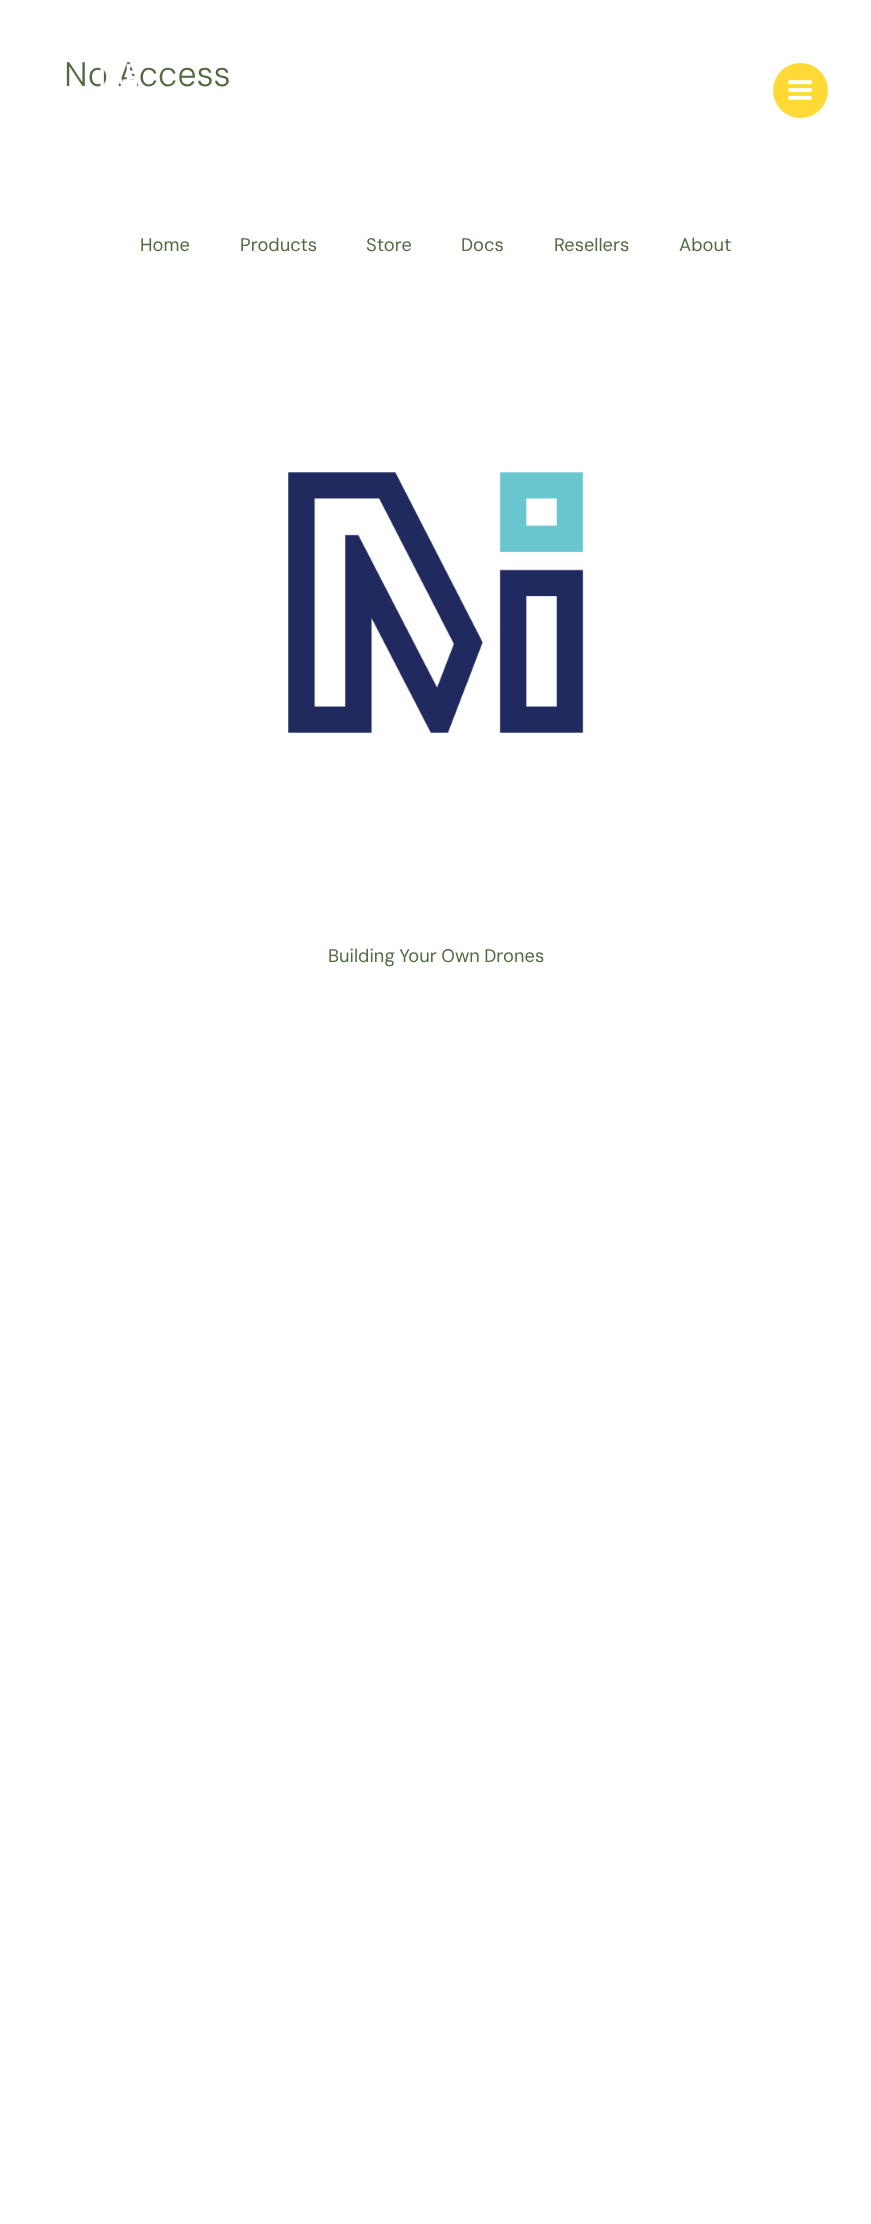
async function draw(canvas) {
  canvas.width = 871;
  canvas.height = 2224;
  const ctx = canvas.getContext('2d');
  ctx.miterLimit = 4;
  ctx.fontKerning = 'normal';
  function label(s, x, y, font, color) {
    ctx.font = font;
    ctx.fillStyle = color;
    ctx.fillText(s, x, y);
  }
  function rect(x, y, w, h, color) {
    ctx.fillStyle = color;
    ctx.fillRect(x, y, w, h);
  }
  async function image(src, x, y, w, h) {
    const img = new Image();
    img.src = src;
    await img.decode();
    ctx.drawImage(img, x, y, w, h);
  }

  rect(0, 0, 871, 2224, '#fff');
  label('No Access', 64, 86, '300 34px DM Sans', '#536942');
  await image('assets/img1.png', 100, 63, 38, 24);
  ctx.fillStyle = '#ffd936';
  ctx.beginPath();
  ctx.arc(800.5, 90.5, 27.5, 0, 2 * Math.PI);
  ctx.fill();
  await image('assets/img2.png', 788, 80, 24, 20);
  label('Home', 140, 251, '18.25px DM Sans', '#536942');
  label('Products', 240, 251, '18.25px DM Sans', '#536942');
  label('Store', 366, 251, '18.25px DM Sans', '#536942');
  label('Docs', 461, 251, '18.25px DM Sans', '#536942');
  label('Resellers', 554, 251, '18.25px DM Sans', '#536942');
  label('About', 679, 251, '18.25px DM Sans', '#536942');
  await image('assets/img3.png', 288, 472, 296, 261);
  ctx.wordSpacing = '-0.5px';
  label('Building Your Own Drones', 328, 962, '18.25px DM Sans', '#536942');
}

draw(document.querySelector('canvas'));
